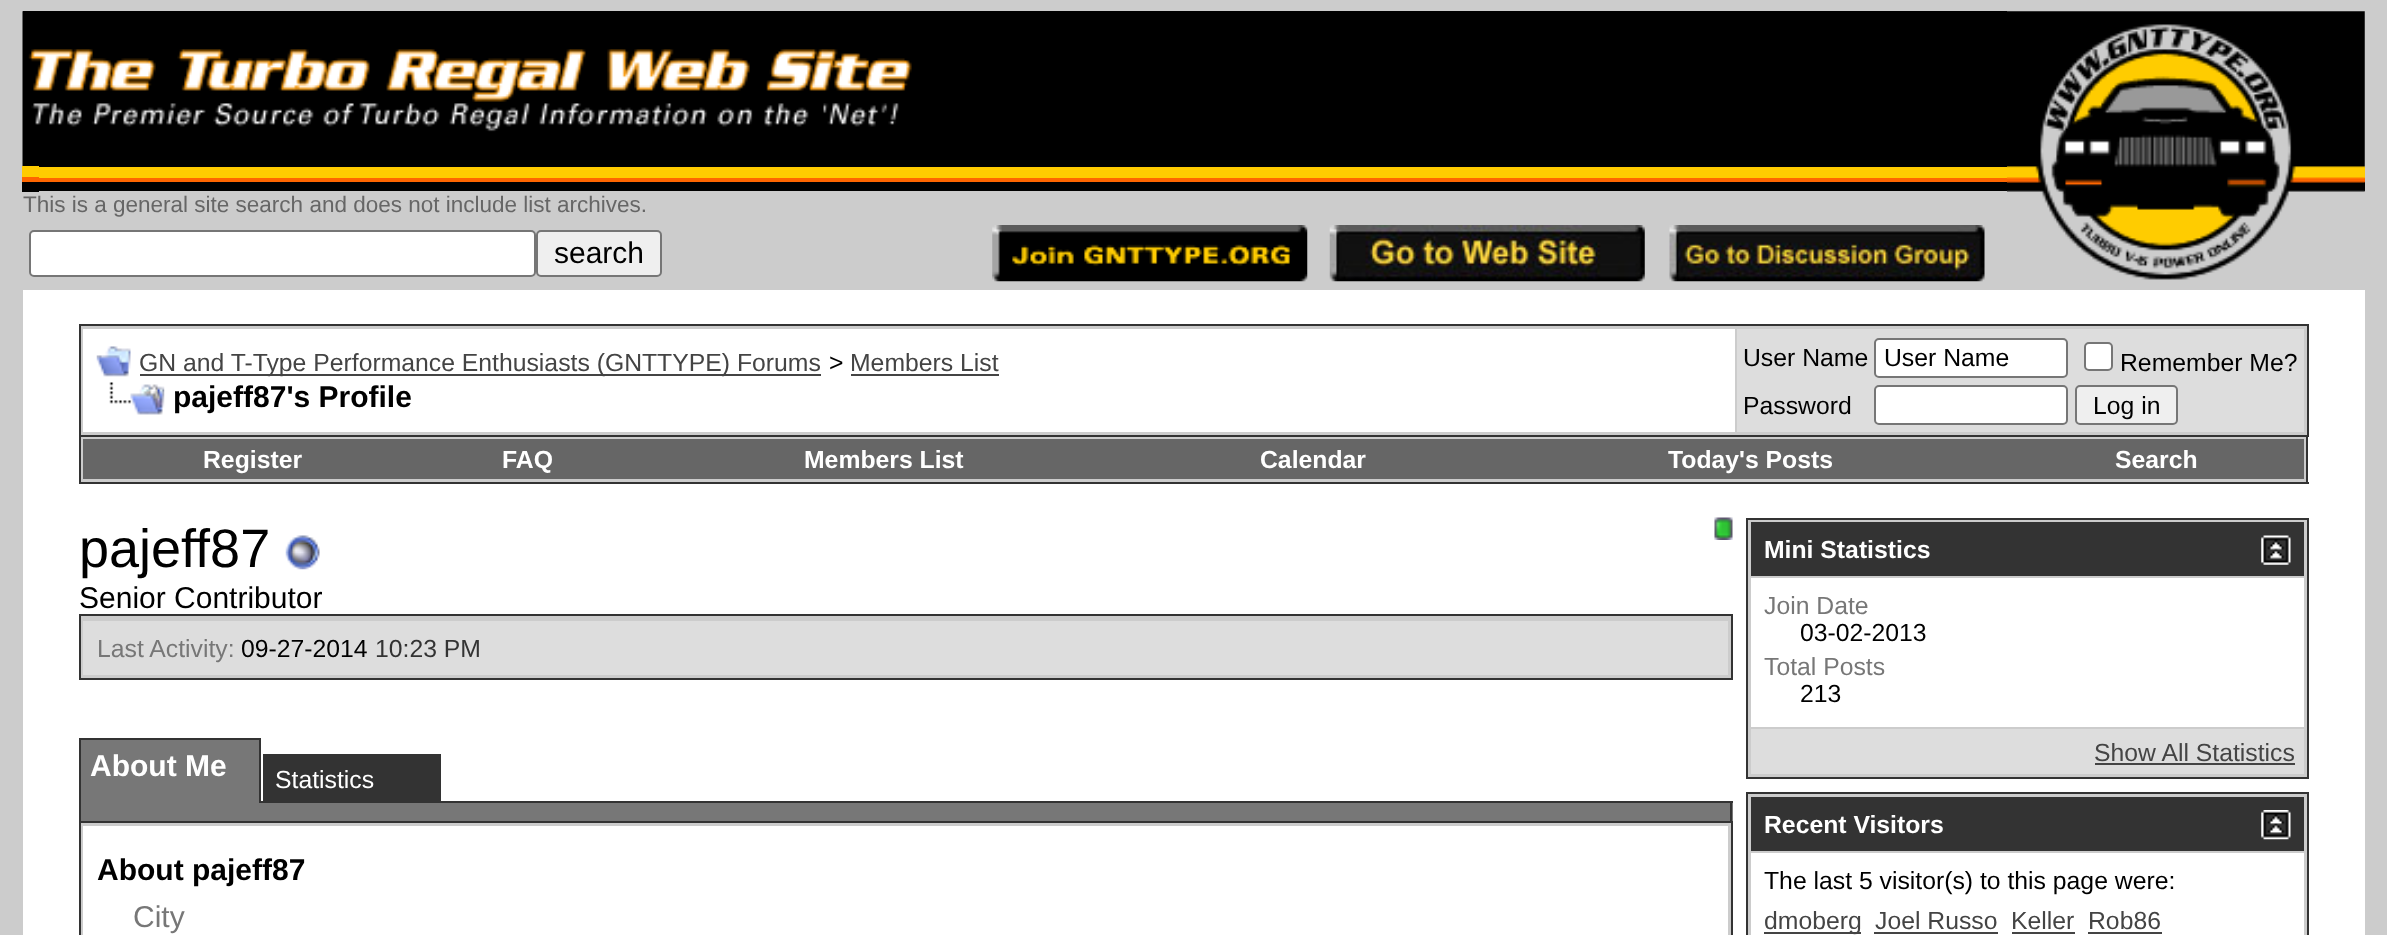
async function draw(canvas) {
  canvas.width = 2387;
  canvas.height = 935;
  const ctx = canvas.getContext('2d');
  ctx.miterLimit = 4;
  ctx.fontKerning = 'normal';
  function label(s, x, y, font, color) {
    ctx.font = font;
    ctx.fillStyle = color;
    ctx.fillText(s, x, y);
  }
  function rect(x, y, w, h, color) {
    ctx.fillStyle = color;
    ctx.fillRect(x, y, w, h);
  }
  async function image(src, x, y, w, h) {
    const img = new Image();
    img.src = src;
    await img.decode();
    ctx.drawImage(img, x, y, w, h);
  }

  rect(0, 0, 2387, 935, '#ccc');
  rect(23, 11, 1984, 156, '#000');
  await image('assets/img1.png', 22, 11, 890, 156);
  rect(39, 167, 2326, 11, '#fc0');
  rect(39, 178, 2326, 4, '#f60');
  rect(39, 182, 2326, 9, '#000');
  await image('assets/img2.png', 2007, 11, 358, 269);
  rect(22, 166, 17, 11, '#fc0');
  rect(22, 177, 17, 5, '#f60');
  rect(22, 182, 17, 10, '#000');
  label('This is a general site search and does not include list archives.', 23, 212, '22.5px Liberation Sans', '#666');
  ctx.fillStyle = '#fff';
  ctx.beginPath();
  ctx.roundRect(30, 231, 505, 45, 4);
  ctx.fill();
  ctx.strokeStyle = '#767676';
  ctx.lineWidth = 2;
  ctx.stroke();
  ctx.fillStyle = '#efefef';
  ctx.beginPath();
  ctx.roundRect(537, 231, 124, 45, 4);
  ctx.fill();
  ctx.stroke();
  label('search', 554, 263, '30px Liberation Sans', '#000');
  await image('assets/img3.png', 992, 225, 316, 57);
  await image('assets/img4.png', 1329, 225, 316, 57);
  await image('assets/img5.png', 1669, 225, 316, 57);
  rect(23, 290, 2342, 645, '#fff');
  ctx.fillStyle = '#ccc';
  ctx.beginPath();
  ctx.rect(80, 325, 2228, 111);
  ctx.fill();
  ctx.strokeStyle = '#333';
  ctx.stroke();
  rect(83, 329, 1652, 103, '#fff');
  await image('assets/img6.png', 96, 346, 35, 31);
  rect(140, 374, 681, 2, '#444');
  label('GN and T-Type Performance Enthusiasts (GNTTYPE) Forums', 139, 371, '24.75px Liberation Sans', '#444');
  label('>', 829, 371, '24.75px Liberation Sans', '#000');
  label('Members List', 850, 371, '24.75px Liberation Sans', '#444');
  rect(851, 374, 148, 2, '#444');
  await image('assets/img7.png', 109, 382, 56, 33);
  label('pajeff87\'s Profile', 173, 407, 'bold 30px Liberation Sans', '#000');
  rect(1737, 329, 567, 103, '#ddd');
  label('User Name', 1743, 366, '24.75px Liberation Sans', '#000');
  ctx.fillStyle = '#fff';
  ctx.beginPath();
  ctx.roundRect(1875, 339, 192, 38, 4);
  ctx.fill();
  ctx.strokeStyle = '#767676';
  ctx.stroke();
  label('User Name', 1884, 366, '24.75px Liberation Sans', '#000');
  ctx.fillStyle = '#fff';
  ctx.beginPath();
  ctx.roundRect(2085, 343, 27, 27, 4);
  ctx.fill();
  ctx.stroke();
  label('Remember Me?', 2120, 371, '24.75px Liberation Sans', '#000');
  label('Password', 1743, 414, '24.75px Liberation Sans', '#000');
  ctx.fillStyle = '#fff';
  ctx.beginPath();
  ctx.roundRect(1875, 386, 192, 38, 4);
  ctx.fill();
  ctx.stroke();
  ctx.fillStyle = '#efefef';
  ctx.beginPath();
  ctx.roundRect(2076, 386, 101, 38, 4);
  ctx.fill();
  ctx.stroke();
  label('Log in', 2093, 414, '24.75px Liberation Sans', '#000');
  rect(81, 437, 2225, 45, '#ccc');
  rect(2306, 437, 2, 47, '#333');
  rect(79, 482, 2230, 2, '#333');
  rect(79, 437, 2, 47, '#333');
  rect(83, 439, 2221, 40, '#666');
  label('Register', 203, 468, 'bold 24.75px Liberation Sans', '#fff');
  label('FAQ', 502, 468, 'bold 24.75px Liberation Sans', '#fff');
  label('Members List', 804, 468, 'bold 24.75px Liberation Sans', '#fff');
  label('Calendar', 1260, 468, 'bold 24.75px Liberation Sans', '#fff');
  label('Today\'s Posts', 1668, 468, 'bold 24.75px Liberation Sans', '#fff');
  label('Search', 2115, 468, 'bold 24.75px Liberation Sans', '#fff');
  label('pajeff87', 79, 567, '54px Liberation Sans', '#000');
  await image('assets/img8.png', 285, 535, 35, 35);
  await image('assets/img9.png', 1714, 517, 19, 23);
  label('Senior Contributor', 79, 608, '30px Liberation Sans', '#000');
  ctx.fillStyle = '#ccc';
  ctx.beginPath();
  ctx.rect(80, 615, 1652, 64);
  ctx.fill();
  ctx.strokeStyle = '#333';
  ctx.stroke();
  rect(83, 621, 1645, 54, '#ddd');
  label('Last Activity:', 97, 657, '24.75px Liberation Sans', '#777');
  label('09-27-2014', 241, 657, '24.75px Liberation Sans', '#000');
  label('10:23 PM', 375, 657, '24.75px Liberation Sans', '#333');
  rect(81, 740, 178, 63, '#777');
  rect(79, 738, 182, 2, '#333');
  rect(259, 738, 2, 65, '#333');
  rect(79, 801, 2, 20, '#333');
  rect(79, 738, 2, 65, '#333');
  label('About Me', 90, 776, 'bold 30px Liberation Sans', '#fff');
  rect(263, 754, 178, 47, '#333');
  label('Statistics', 275, 788, '24.75px Liberation Sans', '#fff');
  rect(81, 803, 1652, 18, '#777');
  rect(261, 801, 1472, 2, '#333');
  rect(1730, 801, 2, 20, '#333');
  ctx.fillStyle = '#ccc';
  ctx.beginPath();
  ctx.rect(80, 822, 1652, 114);
  ctx.fill();
  ctx.stroke();
  rect(83, 826, 1645, 109, '#fff');
  label('About pajeff87', 97, 880, 'bold 30px Liberation Sans', '#000');
  label('City', 133, 927, '30px Liberation Sans', '#777');
  ctx.fillStyle = '#ccc';
  ctx.beginPath();
  ctx.rect(1747, 519, 561, 259);
  ctx.fill();
  ctx.stroke();
  rect(1751, 522, 553, 54, '#333');
  label('Mini Statistics', 1764, 558, 'bold 24.75px Liberation Sans', '#fff');
  await image('assets/img10.png', 2261, 535, 30, 30);
  rect(1751, 578, 553, 149, '#fff');
  label('Join Date', 1764, 614, '24.75px Liberation Sans', '#777');
  label('03-02-2013', 1800, 641, '24.75px Liberation Sans', '#000');
  label('Total Posts', 1764, 675, '24.75px Liberation Sans', '#777');
  label('213', 1800, 702, '24.75px Liberation Sans', '#000');
  rect(1751, 729, 553, 45, '#ddd');
  label('Show All Statistics', 2094, 761, '24.75px Liberation Sans', '#444');
  rect(2095, 763, 200, 2, '#444');
  ctx.fillStyle = '#ccc';
  ctx.beginPath();
  ctx.rect(1747, 793, 561, 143);
  ctx.fill();
  ctx.stroke();
  rect(1751, 797, 553, 54, '#333');
  label('Recent Visitors', 1764, 833, 'bold 24.75px Liberation Sans', '#fff');
  await image('assets/img11.png', 2261, 810, 30, 30);
  rect(1751, 853, 553, 82, '#fff');
  label('The last 5 visitor(s) to this page were:', 1764, 889, '24.75px Liberation Sans', '#000');
  rect(1764, 932, 97, 2, '#444');
  label('dmoberg', 1764, 929, '24.75px Liberation Sans', '#444');
  label('Joel Russo', 1875, 929, '24.75px Liberation Sans', '#444');
  rect(1874, 932, 124, 2, '#444');
  label('Keller', 2011, 929, '24.75px Liberation Sans', '#444');
  rect(2012, 932, 63, 2, '#444');
  label('Rob86', 2088, 929, '24.75px Liberation Sans', '#444');
  rect(2088, 932, 74, 2, '#444');
}

draw(document.querySelector('canvas'));
